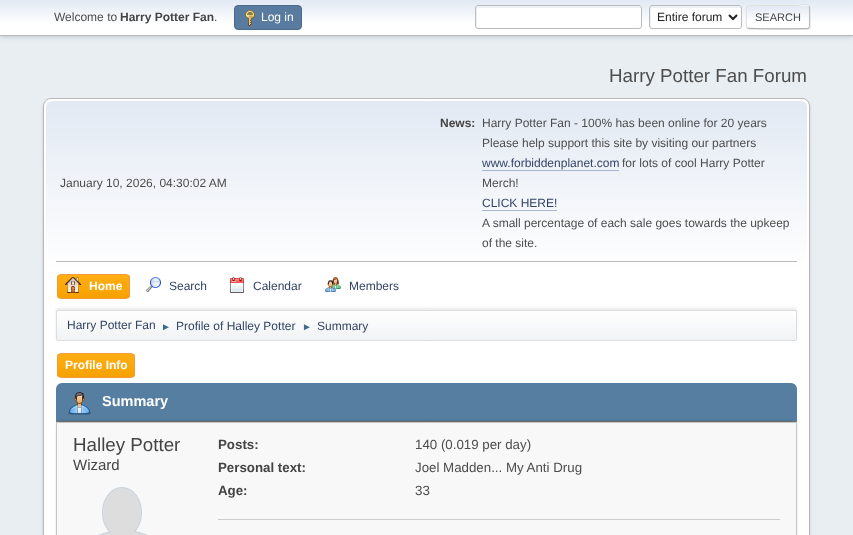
async function draw(canvas) {
  canvas.width = 853;
  canvas.height = 535;
  const ctx = canvas.getContext('2d');
  ctx.miterLimit = 4;
  ctx.fontKerning = 'normal';
  function label(s, x, y, font, color) {
    ctx.font = font;
    ctx.fillStyle = color;
    ctx.fillText(s, x, y);
  }
  function rect(x, y, w, h, color) {
    ctx.fillStyle = color;
    ctx.fillRect(x, y, w, h);
  }
  function roundedRect(x, y, w, h, r, color) {
    ctx.fillStyle = color;
    ctx.beginPath();
    ctx.roundRect(x, y, w, h, r);
    ctx.fill();
  }
  async function image(src, x, y, w, h) {
    const img = new Image();
    img.src = src;
    await img.decode();
    ctx.drawImage(img, x, y, w, h);
  }
  let gradient, path;

  rect(0, 0, 853, 535, '#e9eef2');
  ctx.fillStyle = '#00000029';
  ctx.filter = 'blur(2px)';
  ctx.beginPath();
  ctx.rect(0, 1, 853, 36);
  ctx.fill();
  ctx.filter = 'none';
  gradient = ctx.createLinearGradient(427, 0, 427, 35);
  gradient.addColorStop(0, '#e2e9f3');
  gradient.addColorStop(0.7, '#fff');
  ctx.fillStyle = gradient;
  ctx.fillRect(0, 0, 853, 35);
  rect(0, 35, 853, 1, '#bbb');
  label('Welcome to', 54, 21, '12px Liberation Sans', '#4d4d4d');
  label('Harry Potter Fan', 120, 21, 'bold 12px Liberation Sans', '#444');
  label('.', 214, 21, '12px Liberation Sans', '#4d4d4d');
  ctx.fillStyle = '#597b9f';
  ctx.beginPath();
  ctx.roundRect(234.5, 5.5, 67, 24, 3.5);
  ctx.fill();
  ctx.strokeStyle = '#4a6b8c';
  ctx.stroke();
  await image('assets/img1.png', 245, 10, 10, 16);
  label('Log in', 261, 21, '12px Liberation Sans', '#fff');
  roundedRect(475, 5, 167, 24, 3, '#fff');
  ctx.fillStyle = '#ecf1f8';
  path = new Path2D('M479 8H641V7L639 6H478C477 6 476 7 476 8C476 11 475 27 477 28V10C477 9 478 8 479 8Z');
  ctx.fill(path);
  ctx.beginPath();
  ctx.roundRect(475.5, 5.5, 166, 23, 2.5);
  ctx.strokeStyle = '#bbb';
  ctx.stroke();
  roundedRect(649, 5, 93, 24, 3, '#fff');
  ctx.fillStyle = '#ecf1f8';
  path = new Path2D('M653 8H741C741 3 729 6 724 6H666C648 6 650 2 650 17C650 19 649 27 651 28V10C651 9 652 8 653 8Z');
  ctx.fill(path);
  ctx.beginPath();
  ctx.roundRect(649.5, 5.5, 92, 23, 2.5);
  ctx.stroke();
  path = new Path2D('M729 15L733 19L737 15');
  ctx.strokeStyle = '#222';
  ctx.lineWidth = 2;
  ctx.stroke(path);
  label('Entire forum', 657, 21, '12px Liberation Sans', '#222');
  ctx.fillStyle = '#dddddd91';
  ctx.filter = 'blur(0.5px)';
  ctx.beginPath();
  ctx.roundRect(747, 6, 64, 24, 3);
  ctx.fill();
  ctx.filter = 'none';
  ctx.save();
  ctx.beginPath();
  ctx.roundRect(746, 5, 64, 24, 3);
  ctx.clip();
  gradient = ctx.createLinearGradient(778, -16, 778, 6);
  gradient.addColorStop(0, '#e2e9f3');
  gradient.addColorStop(0.7, '#fff');
  ctx.fillStyle = gradient;
  ctx.fillRect(746, 5, 64, 1);
  gradient = ctx.createLinearGradient(778, 6, 778, 28);
  gradient.addColorStop(0, '#e2e9f3');
  gradient.addColorStop(0.7, '#fff');
  ctx.fillStyle = gradient;
  ctx.fillRect(746, 6, 64, 22);
  gradient = ctx.createLinearGradient(778, 28, 778, 50);
  gradient.addColorStop(0, '#e2e9f3');
  gradient.addColorStop(0.7, '#fff');
  ctx.fillStyle = gradient;
  ctx.fillRect(746, 28, 64, 1);
  ctx.restore();
  path = new Path2D('M809 6C809 6.5 809.5 7.5 809.5 8V26C809.5 26.5 809 27.5 809 28');
  ctx.strokeStyle = '#bbb';
  ctx.lineWidth = 1;
  ctx.stroke(path);
  path = new Path2D('M809 28L807 28.5C802 29 748.5 29 747.5 28H747');
  ctx.strokeStyle = '#aaa';
  ctx.stroke(path);
  path = new Path2D('M747 28C745.5 26 746.5 19 746.5 17C746.5 3.5 744.5 5.5 758.5 5.5H797.5C801 5.5 806 3.5 809 6');
  ctx.strokeStyle = '#ddd';
  ctx.stroke(path);
  label('SEARCH', 755, 21, '11px Liberation Sans', '#444');
  label('Harry Potter Fan Forum', 609, 82, '18.75px Liberation Sans', '#4d4d4d');
  ctx.fillStyle = '#00000024';
  ctx.filter = 'blur(1.5px)';
  ctx.beginPath();
  ctx.roundRect(43, 100, 767, 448, 8);
  ctx.fill();
  ctx.filter = 'none';
  ctx.fillStyle = '#fff';
  ctx.beginPath();
  ctx.roundRect(43.5, 98.5, 766, 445, 7.5);
  ctx.fill();
  ctx.strokeStyle = '#b8b8b8';
  ctx.stroke();
  gradient = ctx.createLinearGradient(427, 101, 427, 343);
  gradient.addColorStop(0, '#e2e9f3');
  gradient.addColorStop(0.7, '#fff');
  ctx.fillStyle = gradient;
  ctx.beginPath();
  ctx.roundRect(46, 101, 761, 242, [6, 6, 0, 0]);
  ctx.fill();
  rect(56, 261, 741, 1, '#bbb');
  label('January 10, 2026, 04:30:02 AM', 60, 187, '12px Liberation Sans', '#4d4d4d');
  label('News:', 440, 127, 'bold 12px Liberation Sans', '#444');
  label('Harry Potter Fan - 100% has been online for 20 years', 482, 127, '12px Liberation Sans', '#4d4d4d');
  label('Please help support this site by visiting our partners', 482, 147, '12px Liberation Sans', '#4d4d4d');
  label('www.forbiddenplanet.com', 482, 167, '12px Liberation Sans', '#346');
  rect(482, 170, 137, 1, '#a8b6cf');
  label('for lots of cool Harry Potter', 622, 167, '12px Liberation Sans', '#4d4d4d');
  label('Merch!', 482, 187, '12px Liberation Sans', '#4d4d4d');
  label('CLICK HERE!', 482, 207, '12px Liberation Sans', '#346');
  rect(482, 210, 75, 1, '#a8b6cf');
  label('A small percentage of each sale goes towards the upkeep', 482, 227, '12px Liberation Sans', '#4d4d4d');
  label('of the site.', 482, 247, '12px Liberation Sans', '#4d4d4d');
  ctx.save();
  ctx.beginPath();
  ctx.roundRect(57, 274, 73, 25, 4);
  ctx.clip();
  gradient = ctx.createLinearGradient(94, 275, 94, 298);
  gradient.addColorStop(0, '#ffae14');
  gradient.addColorStop(1, '#f5a100');
  ctx.fillStyle = gradient;
  ctx.fillRect(57, 275, 73, 23);
  ctx.restore();
  ctx.beginPath();
  ctx.roundRect(57.5, 274.5, 72, 24, 3.5);
  ctx.strokeStyle = '#f49a3a';
  ctx.stroke();
  await image('assets/img2.png', 65, 277, 16, 16);
  label('Home', 89, 290, 'bold 12px Liberation Sans', '#fff');
  await image('assets/img3.png', 146, 277, 15, 15);
  label('Search', 169, 290, '12px Liberation Sans', '#346');
  await image('assets/img4.png', 230, 277, 14, 16);
  label('Calendar', 253, 290, '12px Liberation Sans', '#346');
  await image('assets/img5.png', 325, 277, 16, 15);
  label('Members', 349, 290, '12px Liberation Sans', '#346');
  ctx.fillStyle = '#00000014';
  ctx.filter = 'blur(1px)';
  ctx.beginPath();
  ctx.roundRect(56, 308, 741, 31, 2);
  ctx.fill();
  ctx.filter = 'none';
  ctx.save();
  ctx.beginPath();
  ctx.roundRect(56, 310, 741, 31, 2);
  ctx.clip();
  gradient = ctx.createLinearGradient(427, 311, 427, 340);
  gradient.addColorStop(0, '#fff');
  gradient.addColorStop(0.95, '#f1f3f5');
  ctx.fillStyle = gradient;
  ctx.fillRect(56, 311, 741, 29);
  ctx.restore();
  ctx.beginPath();
  ctx.roundRect(56.5, 310.5, 740, 30, 1.5);
  ctx.strokeStyle = '#ddd';
  ctx.stroke();
  label('Harry Potter Fan', 67, 329, '12px Liberation Sans', '#346');
  label('►', 161, 330, '10px Liberation Sans', '#3f6b8c');
  label('Profile of Halley Potter', 176, 330, '12px Liberation Sans', '#346');
  label('►', 302, 330, '10px Liberation Sans', '#3f6b8c');
  label('Summary', 317, 330, '12px Liberation Sans', '#346');
  ctx.save();
  ctx.beginPath();
  ctx.roundRect(57, 353, 78, 25, 4);
  ctx.clip();
  gradient = ctx.createLinearGradient(96, 354, 96, 377);
  gradient.addColorStop(0, '#ffae14');
  gradient.addColorStop(1, '#f5a100');
  ctx.fillStyle = gradient;
  ctx.fillRect(57, 354, 78, 23);
  ctx.restore();
  ctx.beginPath();
  ctx.roundRect(57.5, 353.5, 77, 24, 3.5);
  ctx.strokeStyle = '#f49a3a';
  ctx.stroke();
  label('Profile Info', 65, 369, 'bold 12px Liberation Sans', '#fff');
  ctx.fillStyle = '#557ea0';
  ctx.beginPath();
  ctx.roundRect(56, 383, 741, 39, [6, 6, 0, 0]);
  ctx.fill();
  rect(56, 421, 741, 1, '#777');
  await image('assets/img6.png', 68, 392, 23, 23);
  label('Summary', 102, 406, 'bold 14.5px Liberation Sans', '#fff');
  ctx.fillStyle = '#0000001a';
  ctx.filter = 'blur(1px)';
  ctx.beginPath();
  ctx.roundRect(56, 420, 741, 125, 7);
  ctx.fill();
  ctx.filter = 'none';
  ctx.fillStyle = '#f8f8f8';
  ctx.beginPath();
  ctx.rect(56.5, 422.5, 740, 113);
  ctx.fill();
  ctx.strokeStyle = '#c5c5c5';
  ctx.stroke();
  label('Halley Potter', 73, 451, '18.75px Liberation Sans', '#444');
  label('Wizard', 73, 470, '15px Liberation Sans', '#444');
  await image('assets/img7.png', 98, 487, 50, 48);
  rect(218, 519, 562, 1, '#ccc');
  label('Posts:', 218, 449, 'bold 13.3px Liberation Sans', '#444');
  label('140 (0.019 per day)', 415, 449, '13.3px Liberation Sans', '#4d4d4d');
  label('Personal text:', 218, 472, 'bold 13.3px Liberation Sans', '#444');
  label('Joel Madden... My Anti Drug', 415, 472, '13.3px Liberation Sans', '#4d4d4d');
  label('Age:', 218, 495, 'bold 13.3px Liberation Sans', '#444');
  label('33', 415, 495, '13.3px Liberation Sans', '#4d4d4d');
}

draw(document.querySelector('canvas'));
